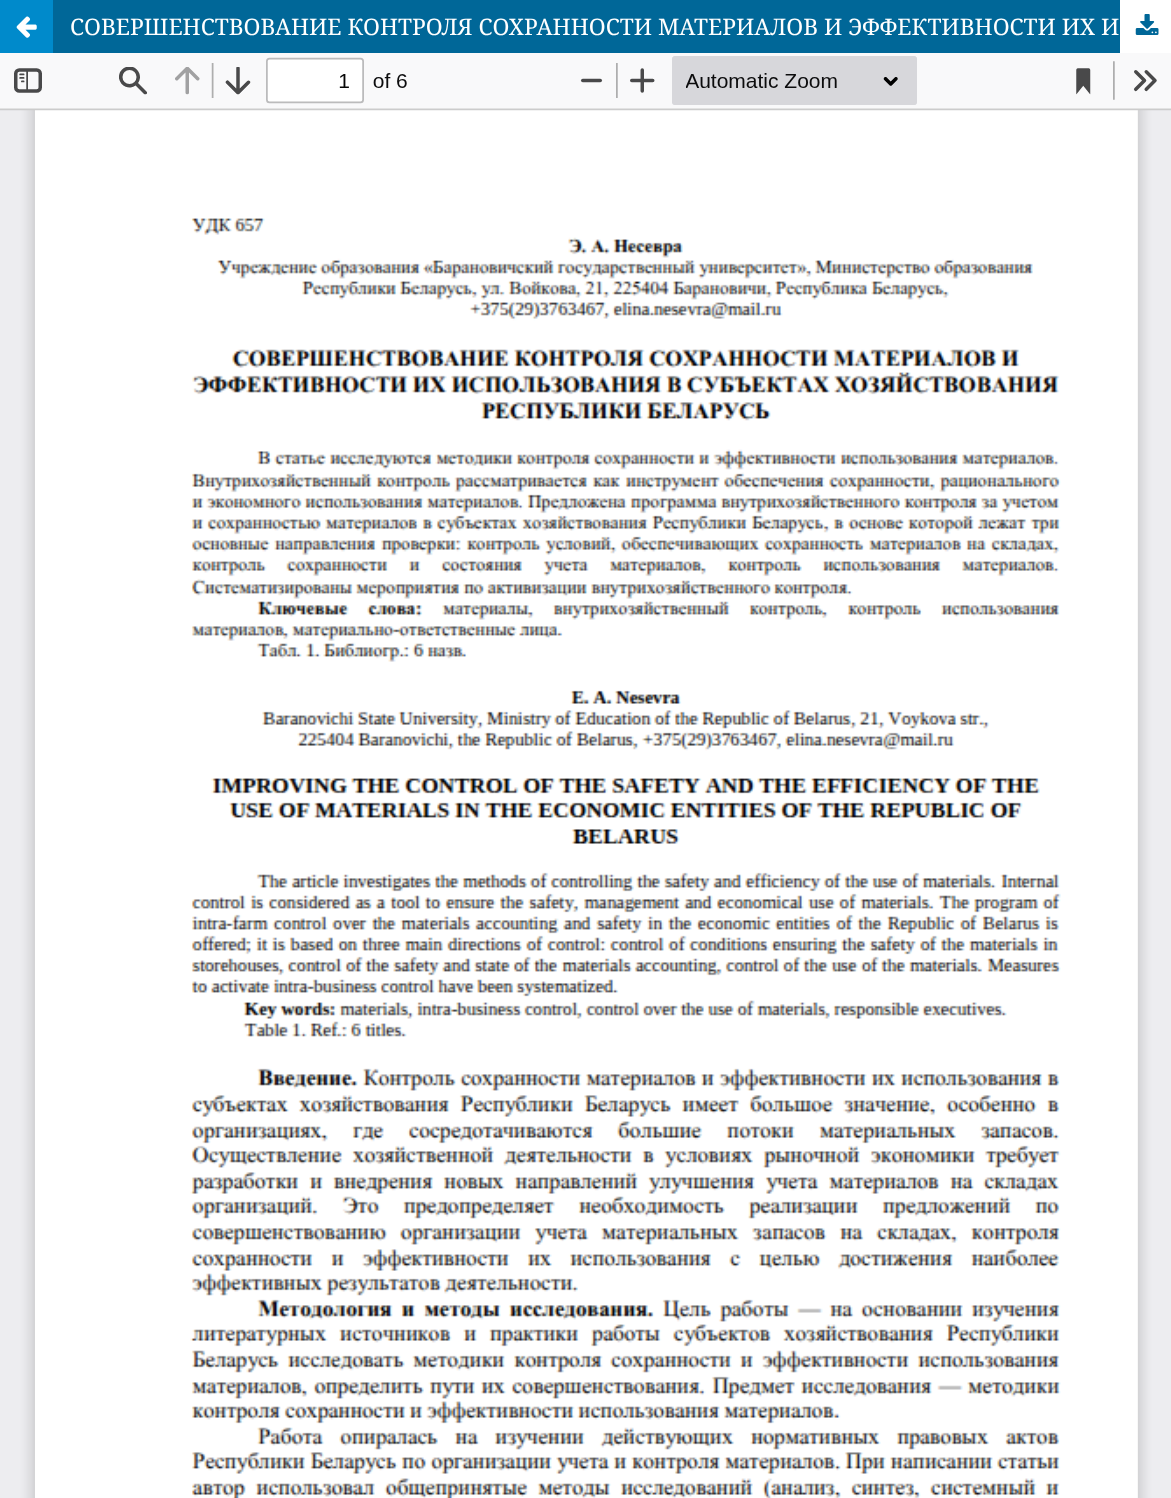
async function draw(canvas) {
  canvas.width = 1171;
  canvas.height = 1498;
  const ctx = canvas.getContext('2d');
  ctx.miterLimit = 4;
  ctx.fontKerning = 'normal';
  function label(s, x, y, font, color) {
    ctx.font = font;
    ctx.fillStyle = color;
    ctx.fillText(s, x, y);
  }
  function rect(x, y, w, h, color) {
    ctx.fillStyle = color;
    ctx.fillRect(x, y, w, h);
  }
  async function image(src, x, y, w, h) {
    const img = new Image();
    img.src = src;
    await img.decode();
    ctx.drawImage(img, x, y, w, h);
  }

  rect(0, 0, 1171, 1498, '#fff');
  rect(53, 0, 1067, 53, '#006798');
  rect(0, 0, 53, 53, '#008acb');
  await image('assets/img1.png', 16, 16, 21, 22);
  label('СОВЕРШЕНСТВОВАНИЕ КОНТРОЛЯ СОХРАННОСТИ МАТЕРИАЛОВ И ЭФФЕКТИВНОСТИ ИХ И', 70, 35, '22.8px Noto Serif', '#fff');
  await image('assets/img2.png', 1135, 14, 24, 21);
  await image('assets/img3.png', 0, 53, 1171, 1445);
}

draw(document.querySelector('canvas'));
